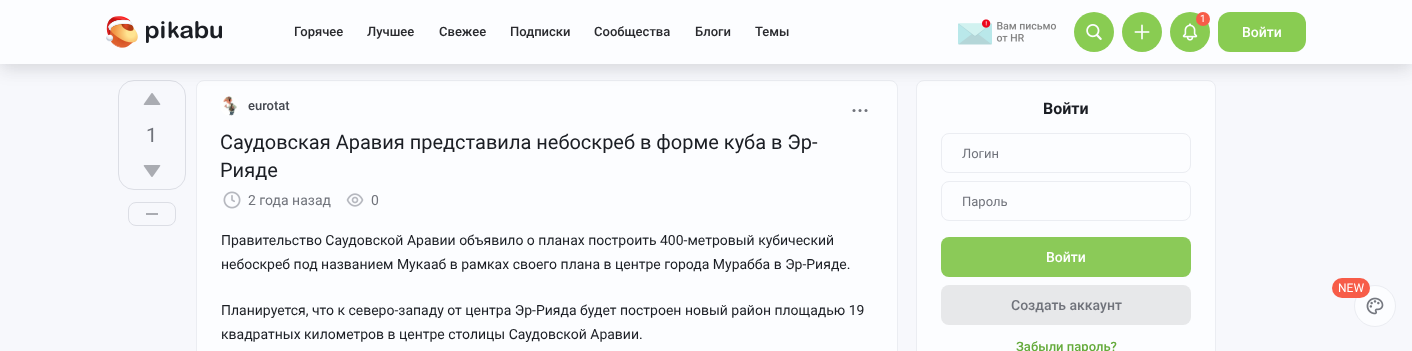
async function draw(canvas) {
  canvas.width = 1412;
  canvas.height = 351;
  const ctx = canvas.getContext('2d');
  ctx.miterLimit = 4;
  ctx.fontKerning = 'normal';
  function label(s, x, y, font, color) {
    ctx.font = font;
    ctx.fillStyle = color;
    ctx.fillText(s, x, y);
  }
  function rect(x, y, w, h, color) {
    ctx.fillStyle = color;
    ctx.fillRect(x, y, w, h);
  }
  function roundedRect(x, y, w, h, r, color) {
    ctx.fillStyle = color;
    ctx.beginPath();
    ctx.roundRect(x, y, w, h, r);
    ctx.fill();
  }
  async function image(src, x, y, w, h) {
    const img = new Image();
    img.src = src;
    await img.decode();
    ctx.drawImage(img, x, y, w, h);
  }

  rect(0, 0, 1412, 351, '#f7f8fc');
  ctx.beginPath();
  ctx.roundRect(118.5, 80.5, 67, 109, 15.5);
  ctx.strokeStyle = '#dcdee5';
  ctx.stroke();
  await image('assets/img7.png', 143, 93, 18, 12);
  ctx.fillStyle = '#fcfdff';
  ctx.beginPath();
  ctx.roundRect(196.5, 80.5, 701, 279, 7.5);
  ctx.fill();
  ctx.strokeStyle = '#ebedf2';
  ctx.stroke();
  ctx.fillStyle = '#fff';
  ctx.beginPath();
  ctx.arc(230, 106, 10, 0, 2 * Math.PI);
  ctx.fill();
  await image('assets/img9.png', 223, 96, 14, 20);
  ctx.fillStyle = '#fcfdff';
  ctx.beginPath();
  ctx.roundRect(916.5, 80.5, 299, 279, 7.5);
  ctx.fill();
  ctx.stroke();
  ctx.fillStyle = '#00000014';
  ctx.filter = 'blur(10px)';
  ctx.beginPath();
  ctx.rect(0, 4, 1412, 64);
  ctx.fill();
  ctx.filter = 'none';
  ctx.fillStyle = '#292a2e14';
  ctx.filter = 'blur(8px)';
  ctx.beginPath();
  ctx.rect(0, 4, 1412, 64);
  ctx.fill();
  ctx.filter = 'none';
  rect(0, 0, 1412, 64, '#fcfdff');
  await image('assets/img1.png', 106, 16, 32, 32);
  await image('assets/img2.png', 146, 21, 76, 22);
  label('Горячее', 294, 36, '500 13px Roboto', '#292a2e');
  label('Лучшее', 367, 36, '500 13px Roboto', '#292a2e');
  label('Свежее', 439, 36, '500 13px Roboto', '#292a2e');
  label('Подписки', 510, 36, '500 13px Roboto', '#292a2e');
  label('Сообщества', 594, 36, '500 13px Roboto', '#292a2e');
  label('Блоги', 695, 36, '500 13px Roboto', '#292a2e');
  label('Темы', 755, 36, '500 13px Roboto', '#292a2e');
  ctx.fillStyle = '#89cc52';
  ctx.beginPath();
  ctx.arc(1094, 32, 20, 0, 2 * Math.PI);
  ctx.fill();
  await image('assets/img3.png', 1086, 24, 16, 16);
  ctx.beginPath();
  ctx.arc(1142, 32, 20, 0, 2 * Math.PI);
  ctx.fill();
  await image('assets/img4.png', 1134, 24, 16, 16);
  ctx.beginPath();
  ctx.arc(1190, 32, 20, 0, 2 * Math.PI);
  ctx.fill();
  await image('assets/img5.png', 1182, 23, 16, 18);
  ctx.fillStyle = '#f75c48';
  ctx.beginPath();
  ctx.arc(1203, 19, 7, 0, 2 * Math.PI);
  ctx.fill();
  label('1', 1200, 22, '10px Roboto', '#fff');
  await image('assets/img6.png', 958, 19, 98, 26);
  roundedRect(1218, 12, 88, 40, 12, '#89cc52');
  label('Войти', 1242, 37, '500 14px Roboto', '#fff');
  label('1', 146, 142, '20px Roboto', '#70737b');
  await image('assets/img8.png', 143, 165, 18, 12);
  ctx.beginPath();
  ctx.roundRect(128.5, 202.5, 47, 23, 7.5);
  ctx.strokeStyle = '#dcdee5';
  ctx.stroke();
  rect(146, 213, 12, 2, '#aaacb2');
  label('eurotat', 248, 110, '500 13px Roboto', '#444850');
  ctx.fillStyle = '#70737b';
  ctx.beginPath();
  ctx.arc(854, 110.5, 1.5, 0, 2 * Math.PI);
  ctx.fill();
  ctx.beginPath();
  ctx.arc(860, 110.5, 1.5, 0, 2 * Math.PI);
  ctx.fill();
  ctx.beginPath();
  ctx.arc(866, 110.5, 1.5, 0, 2 * Math.PI);
  ctx.fill();
  label('Саудовская Аравия представила небоскреб в форме куба в Эр-', 220, 149, '20px Roboto', '#1b1e24');
  label('Рияде', 220, 177, '20px Roboto', '#1b1e24');
  await image('assets/img10.png', 223, 191, 18, 18);
  label('2 года назад', 248, 205, '14px Roboto', '#70737b');
  await image('assets/img11.png', 346, 193, 18, 14);
  label('0', 371, 205, '14px Roboto', '#70737b');
  label('Правительство Саудовской Аравии объявило о планах построить 400-метровый кубический', 221, 245, '14px Roboto', '#1b1e24');
  label('небоскреб под названием Мукааб в рамках своего плана в центре города Мурабба в Эр-Рияде.', 221, 269, '14px Roboto', '#1b1e24');
  label('Планируется, что к северо-западу от центра Эр-Рияда будет построен новый район площадью 19', 221, 315, '14px Roboto', '#1b1e24');
  label('квадратных километров в центре столицы Саудовской Аравии.', 221, 339, '14px Roboto', '#1b1e24');
  label('Войти', 1043, 114, 'bold 16px Roboto', '#1b1e24');
  ctx.beginPath();
  ctx.roundRect(941.5, 133.5, 249, 39, 7.5);
  ctx.strokeStyle = '#ebedf2';
  ctx.stroke();
  label('Логин', 962, 158, '13px Roboto', '#70737b');
  ctx.beginPath();
  ctx.roundRect(941.5, 181.5, 249, 39, 7.5);
  ctx.stroke();
  label('Пароль', 962, 206, '13px Roboto', '#70737b');
  roundedRect(941, 237, 250, 40, 8, '#8bca58');
  label('Войти', 1046, 262, '500 14px Roboto', '#fff');
  roundedRect(941, 285, 250, 40, 8, '#e7e8ea');
  label('Создать аккаунт', 1011, 310, '500 14px Roboto', '#70737b');
  label('Забыли пароль?', 1016, 351, '500 13px Roboto', '#65ab3c');
  ctx.fillStyle = '#fcfdff';
  ctx.beginPath();
  ctx.arc(1375, 306, 20.5, 0, 2 * Math.PI);
  ctx.fill();
  ctx.stroke();
  await image('assets/img12.png', 1366, 297, 18, 18);
  roundedRect(1332, 278, 38, 20, 10, '#f75c48');
  label('NEW', 1338, 292, '12px Roboto', '#fff');
}

draw(document.querySelector('canvas'));
